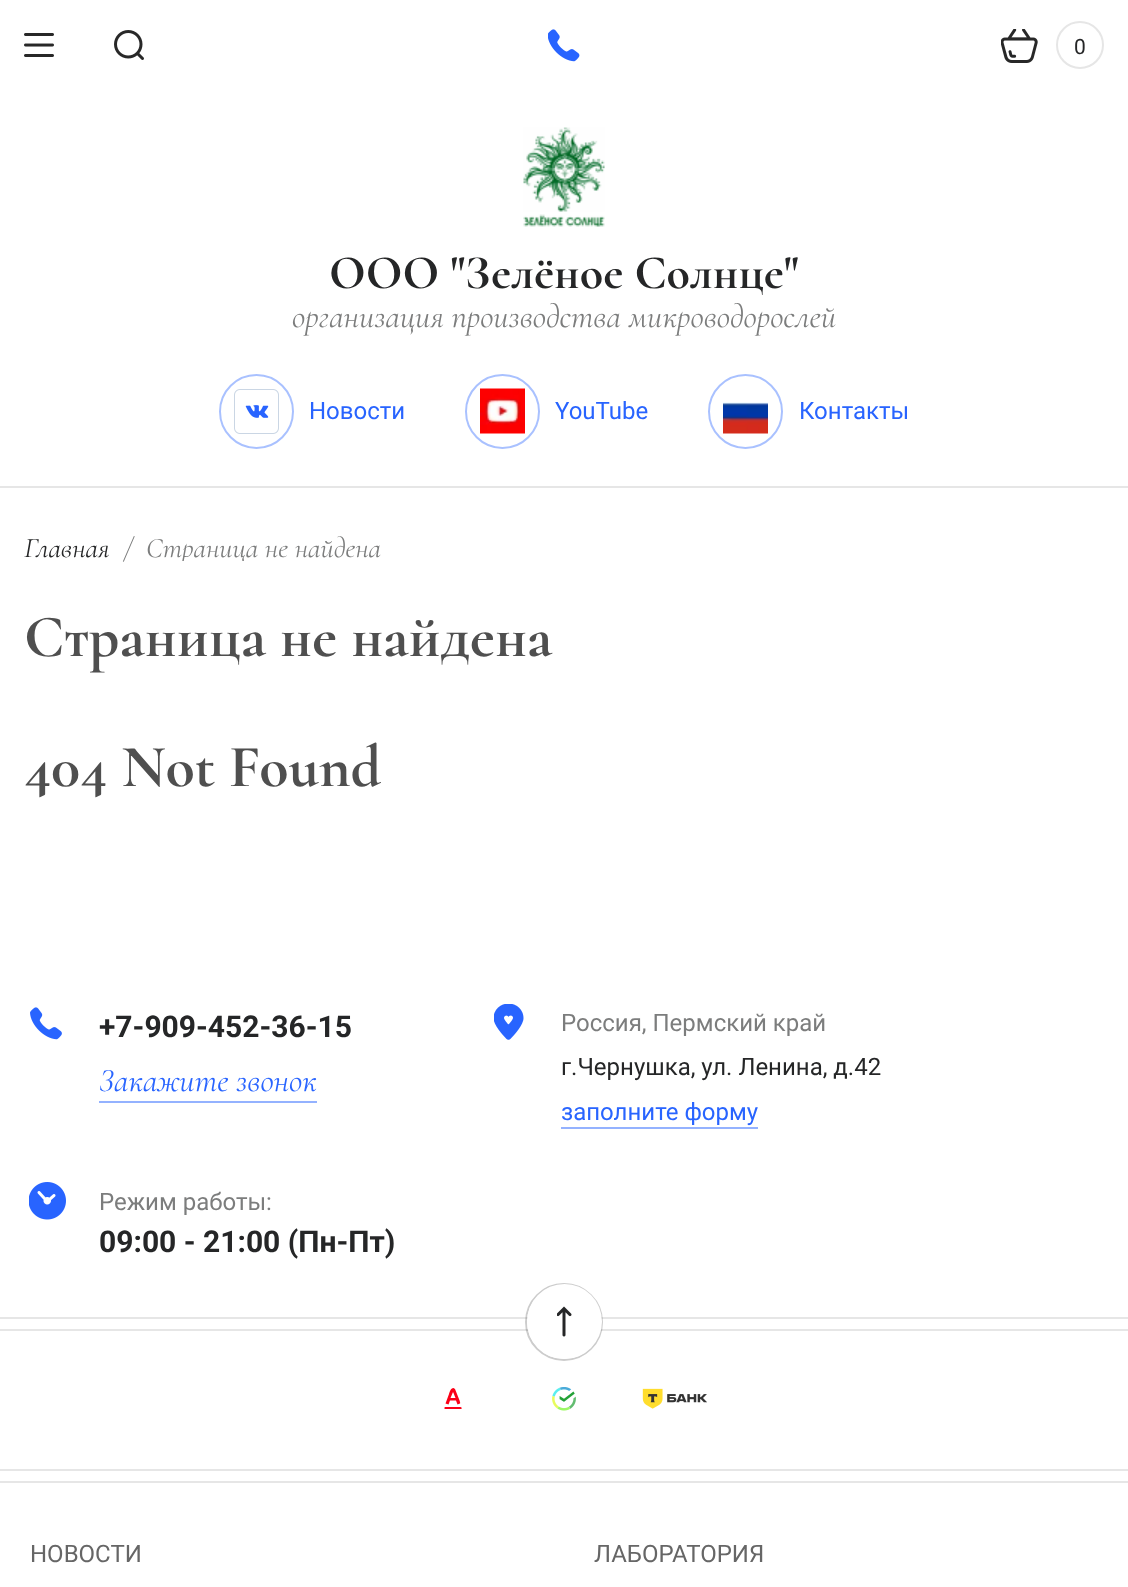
async function draw(canvas) {
  canvas.width = 1128;
  canvas.height = 1587;
  const ctx = canvas.getContext('2d');
  ctx.miterLimit = 4;
  ctx.fontKerning = 'normal';
  function label(s, x, y, font, color) {
    ctx.font = font;
    ctx.fillStyle = color;
    ctx.fillText(s, x, y);
  }
  function rect(x, y, w, h, color) {
    ctx.fillStyle = color;
    ctx.fillRect(x, y, w, h);
  }
  async function image(src, x, y, w, h) {
    const img = new Image();
    img.src = src;
    await img.decode();
    ctx.drawImage(img, x, y, w, h);
  }
  let path;

  rect(0, 0, 1128, 1587, '#fff');
  await image('assets/img1.png', 24, 33, 30, 24);
  await image('assets/img2.png', 114, 30, 30, 30);
  await image('assets/img3.png', 548, 29, 32, 33);
  await image('assets/img4.png', 1001, 29, 37, 34);
  ctx.beginPath();
  ctx.arc(1080, 45, 23, 0, 2 * Math.PI);
  ctx.strokeStyle = '#e6e6e6';
  ctx.lineWidth = 2;
  ctx.stroke();
  label('0', 1074, 54, '21px Roboto', '#252627');
  await image('assets/img5.png', 523, 127, 82, 100);
  label('ООО "Зелёное Солнце"', 329, 288, 'bold 48px Cormorant', '#252627');
  label('организация производства микроводорослей', 292, 327, 'italic 33px Cormorant', '#7c7d7d');
  ctx.beginPath();
  ctx.arc(256.5, 411.5, 36.5, 0, 2 * Math.PI);
  ctx.strokeStyle = '#a9c1ff';
  ctx.stroke();
  await image('assets/img6.png', 234, 389, 45, 45);
  label('Новости', 309, 419, '24px Roboto', '#2864ff');
  ctx.beginPath();
  ctx.arc(502.5, 411.5, 36.5, 0, 2 * Math.PI);
  ctx.stroke();
  await image('assets/img7.png', 480, 388, 45, 46);
  label('YouTube', 555, 419, '24px Roboto', '#2864ff');
  ctx.beginPath();
  ctx.arc(745.5, 411.5, 36.5, 0, 2 * Math.PI);
  ctx.stroke();
  await image('assets/img8.png', 723, 402, 45, 32);
  label('Контакты', 799, 419, '24px Roboto', '#2864ff');
  rect(0, 486, 1128, 2, '#e6e6e6');
  label('Главная', 24, 557, 'italic 28.5px Cormorant', '#252627');
  label('/', 124, 557, 'italic 28.5px Cormorant', '#7c7d7d');
  ctx.save();
  ctx.beginPath();
  ctx.rect(24, 533, 1080, 28);
  ctx.clip();
  label('Страница не найдена', 146, 557, 'italic 28.5px Cormorant', '#7c7d7d');
  ctx.restore();
  label('Страница не найдена', 24, 656, 'bold 60px Cormorant', '#4f4f4f');
  label('404 Not Found', 24, 786, 'bold 60px Cormorant', '#4f4f4f');
  await image('assets/img9.png', 30, 1007, 32, 33);
  label('+7-909-452-36-15', 99, 1037, 'bold 30px Roboto', '#252627');
  label('Закажите звонок', 99, 1091, 'italic 33px Cormorant', '#2864ff');
  rect(99, 1101, 218, 2, '#94b2ff');
  await image('assets/img10.png', 494, 1004, 30, 36);
  label('Россия, Пермский край', 561, 1031, '24px Roboto', '#7c7d7d');
  label('г.Чернушка, ул. Ленина, д.42', 561, 1075, '24px Roboto', '#252627');
  label('заполните форму', 561, 1120, '24px Roboto', '#2864ff');
  rect(561, 1127, 197, 2, '#94b2ff');
  await image('assets/img11.png', 29, 1182, 37, 38);
  label('Режим работы:', 99, 1210, '24px Roboto', '#7c7d7d');
  label('09:00 - 21:00 (Пн-Пт)', 99, 1252, 'bold 30px Roboto', '#252627');
  rect(0, 1317, 1128, 2, '#e6e6e6');
  rect(0, 1329, 1128, 2, '#e6e6e6');
  ctx.beginPath();
  ctx.arc(564, 1322, 38, 0, 2 * Math.PI);
  ctx.strokeStyle = '#00000033';
  ctx.stroke();
  ctx.fillStyle = '#fff';
  ctx.beginPath();
  ctx.arc(564.5, 1321.5, 37.5, 0, 2 * Math.PI);
  ctx.fill();
  await image('assets/img12.png', 557, 1306, 15, 31);
  ctx.save();
  ctx.beginPath();
  ctx.rect(444, 1388, 18, 21);
  ctx.clip();
  ctx.fillStyle = '#fb0017';
  path = new Path2D('M460 1403.5L457.5 1404.5L456 1400.5H450L448.5 1404.5L445.5 1403.5L449 1394C449.5 1392.5 450.5 1388 453.5 1388C454 1388.5 454.5 1388.5 455 1389L457 1394C458 1397 461 1403 460 1403.5ZM453.5 1393L453 1392L450.5 1398H455.5ZM445.5 1407H460.5L461.5 1407.5C462.5 1410 458.5 1409.5 455.5 1409.5H448C447 1409.5 445 1410 444.5 1408.5C444 1407.5 445 1407 445.5 1407Z');
  ctx.fill(path, 'evenodd');
  ctx.restore();
  await image('assets/img13.png', 552, 1387, 24, 24);
  await image('assets/img14.png', 642, 1388, 65, 21);
  rect(0, 1469, 1128, 2, '#e6e6e6');
  rect(0, 1481, 1128, 2, '#e6e6e6');
  label('НОВОСТИ', 30, 1562, '24px Roboto', '#666');
  label('ЛАБОРАТОРИЯ', 594, 1562, '24px Roboto', '#666');
}

draw(document.querySelector('canvas'));
